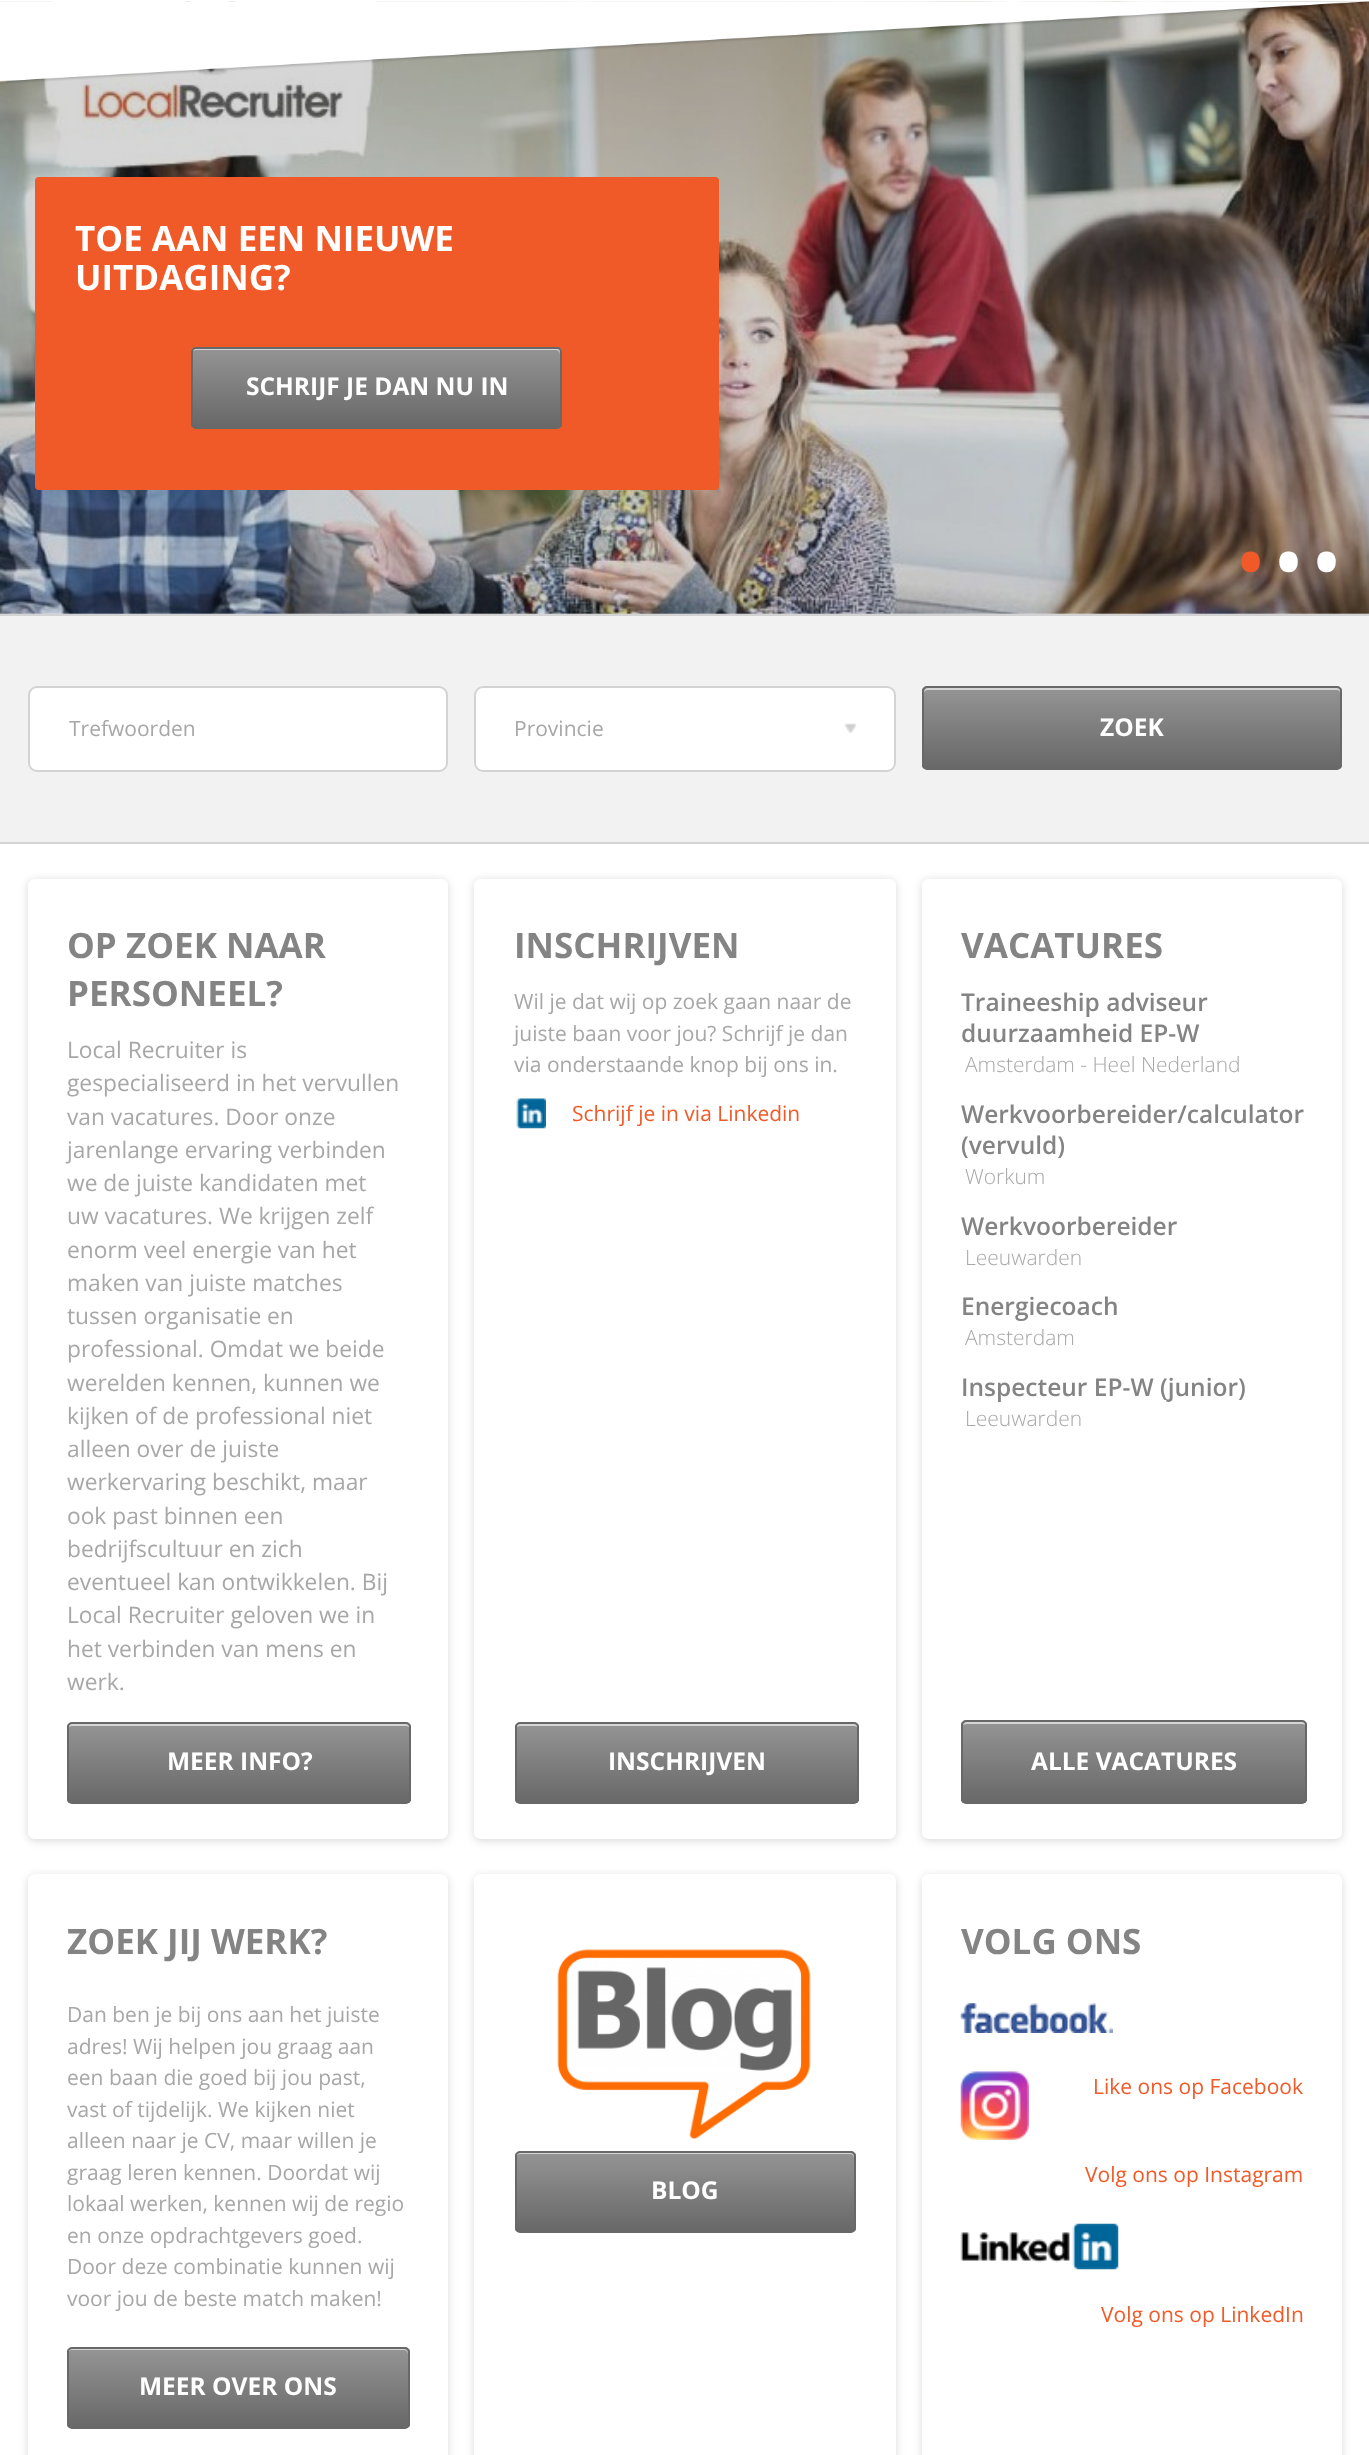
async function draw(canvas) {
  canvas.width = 1369;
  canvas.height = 2455;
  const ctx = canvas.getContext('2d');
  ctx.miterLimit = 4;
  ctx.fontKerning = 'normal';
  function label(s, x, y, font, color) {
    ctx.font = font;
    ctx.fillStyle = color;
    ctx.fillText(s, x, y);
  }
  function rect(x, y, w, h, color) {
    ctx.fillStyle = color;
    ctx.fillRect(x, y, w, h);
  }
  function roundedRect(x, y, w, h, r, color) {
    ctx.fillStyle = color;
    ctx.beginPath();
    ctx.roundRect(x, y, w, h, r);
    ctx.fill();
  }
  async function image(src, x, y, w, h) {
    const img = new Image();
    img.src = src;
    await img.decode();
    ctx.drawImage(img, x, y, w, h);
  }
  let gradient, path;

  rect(0, 0, 1369, 2455, '#fff');
  await image('assets/img2.png', 0, 1, 1369, 613);
  await image('assets/img1.png', 0, 1, 1369, 83);
  roundedRect(35, 177, 684, 313, 4, '#f05a28');
  label('TOE AAN EEN NIEUWE', 75, 251, 'bold 35px Open Sans', '#fff');
  label('UITDAGING?', 75, 290, 'bold 35px Open Sans', '#fff');
  ctx.save();
  ctx.beginPath();
  ctx.roundRect(191, 347, 371, 82, 5);
  ctx.clip();
  gradient = ctx.createLinearGradient(376, 348, 376, 427);
  gradient.addColorStop(0, '#949494');
  gradient.addColorStop(1, '#686868');
  ctx.fillStyle = gradient;
  ctx.fillRect(191, 348, 371, 79);
  ctx.restore();
  ctx.fillStyle = '#d5d5d5';
  path = new Path2D('M196 350H556C558 350 560 352 560 354C560 351 560 348 556 348H197C195 348 193 350 193 351Z');
  ctx.fill(path);
  ctx.beginPath();
  ctx.roundRect(192, 348, 369, 80, 4);
  ctx.strokeStyle = '#686868';
  ctx.lineWidth = 2;
  ctx.stroke();
  label('SCHRIJF JE DAN NU IN', 246, 395, 'bold 24.5px Open Sans', '#fff');
  label('•', 1234, 594, '88px Open Sans', '#f05a28');
  label('•', 1272, 594, '88px Open Sans', '#fff');
  label('•', 1310, 594, '88px Open Sans', '#fff');
  rect(0, 616, 1369, 226, '#f2f2f2');
  rect(0, 614, 1369, 2, '#d3d3d3');
  rect(0, 842, 1369, 2, '#d3d3d3');
  ctx.fillStyle = '#fff';
  ctx.beginPath();
  ctx.roundRect(29, 687, 418, 84, 8);
  ctx.fill();
  ctx.strokeStyle = '#d3d3d3';
  ctx.stroke();
  label('Trefwoorden', 69, 736, '21px Open Sans', '#a7a7a7');
  roundedRect(474, 686, 422, 86, 9, '#fff');
  await image('assets/img3.png', 845, 723, 12, 11);
  ctx.beginPath();
  ctx.roundRect(475, 687, 420, 84, 8);
  ctx.stroke();
  label('Provincie', 514, 736, '21px Open Sans', '#a7a7a7');
  ctx.save();
  ctx.beginPath();
  ctx.roundRect(922, 686, 420, 84, 5);
  ctx.clip();
  gradient = ctx.createLinearGradient(1132, 688, 1132, 768);
  gradient.addColorStop(0, '#949494');
  gradient.addColorStop(1, '#686868');
  ctx.fillStyle = gradient;
  ctx.fillRect(922, 688, 420, 80);
  ctx.restore();
  ctx.fillStyle = '#ffffff9c';
  path = new Path2D('M928 690H1337C1339 690 1340 691 1340 693V767C1341 766 1341 765 1341 764V692C1341 690 1339 688 1337 688H928C926 688 924 690 924 692V693C924 691 926 690 928 690Z');
  ctx.fill(path);
  ctx.beginPath();
  ctx.roundRect(923, 687, 418, 82, 4);
  ctx.strokeStyle = '#686868';
  ctx.stroke();
  label('ZOEK', 1100, 736, 'bold 24.5px Open Sans', '#fff');
  ctx.save();
  path = new Path2D('M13 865H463V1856H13ZM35 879H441C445 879 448 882 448 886V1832C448 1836 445 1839 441 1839H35C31 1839 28 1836 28 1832V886C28 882 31 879 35 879Z');
  ctx.clip(path, 'evenodd');
  ctx.fillStyle = '#00000026';
  ctx.filter = 'blur(4.5px)';
  ctx.beginPath();
  ctx.roundRect(28, 880, 420, 961, 7);
  ctx.fill();
  ctx.filter = 'none';
  ctx.restore();
  label('OP ZOEK NAAR', 67, 958, 'bold 35px Open Sans', '#848484');
  label('PERSONEEL?', 67, 1006, 'bold 35px Open Sans', '#848484');
  label('Local Recruiter is', 67, 1058, '22.75px Open Sans', '#a7a7a7');
  label('gespecialiseerd in het vervullen', 67, 1091, '22.75px Open Sans', '#a7a7a7');
  label('van vacatures. Door onze', 67, 1125, '22.75px Open Sans', '#a7a7a7');
  label('jarenlange ervaring verbinden', 67, 1158, '22.75px Open Sans', '#a7a7a7');
  label('we de juiste kandidaten met', 67, 1191, '22.75px Open Sans', '#a7a7a7');
  label('uw vacatures. We krijgen zelf', 67, 1224, '22.75px Open Sans', '#a7a7a7');
  label('enorm veel energie van het', 67, 1258, '22.75px Open Sans', '#a7a7a7');
  label('maken van juiste matches', 67, 1291, '22.75px Open Sans', '#a7a7a7');
  label('tussen organisatie en', 67, 1324, '22.75px Open Sans', '#a7a7a7');
  label('professional. Omdat we beide', 67, 1357, '22.75px Open Sans', '#a7a7a7');
  label('werelden kennen, kunnen we', 67, 1391, '22.75px Open Sans', '#a7a7a7');
  label('kijken of de professional niet', 67, 1424, '22.75px Open Sans', '#a7a7a7');
  label('alleen over de juiste', 67, 1457, '22.75px Open Sans', '#a7a7a7');
  label('werkervaring beschikt, maar', 67, 1490, '22.75px Open Sans', '#a7a7a7');
  label('ook past binnen een', 67, 1524, '22.75px Open Sans', '#a7a7a7');
  label('bedrijfscultuur en zich', 67, 1557, '22.75px Open Sans', '#a7a7a7');
  label('eventueel kan ontwikkelen. Bij', 67, 1590, '22.75px Open Sans', '#a7a7a7');
  label('Local Recruiter geloven we in', 67, 1623, '22.75px Open Sans', '#a7a7a7');
  label('het verbinden van mens en', 67, 1657, '22.75px Open Sans', '#a7a7a7');
  label('werk.', 67, 1690, '22.75px Open Sans', '#a7a7a7');
  ctx.save();
  ctx.beginPath();
  ctx.roundRect(67, 1722, 344, 82, 5);
  ctx.clip();
  gradient = ctx.createLinearGradient(239, 1724, 239, 1803);
  gradient.addColorStop(0, '#949494');
  gradient.addColorStop(1, '#686868');
  ctx.fillStyle = gradient;
  ctx.fillRect(67, 1724, 344, 79);
  ctx.restore();
  ctx.fillStyle = '#d5d5d5';
  path = new Path2D('M72 1726H406C408 1726 410 1727 410 1729V1728C410 1726 408 1724 406 1724H72C70 1724 68 1726 68 1728V1729C68 1727 70 1726 72 1726Z');
  ctx.fill(path);
  ctx.beginPath();
  ctx.roundRect(68, 1723, 342, 80, 4);
  ctx.stroke();
  label('MEER INFO?', 167, 1770, 'bold 24.5px Open Sans', '#fff');
  ctx.save();
  path = new Path2D('M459 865H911V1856H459ZM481 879H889C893 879 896 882 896 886V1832C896 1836 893 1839 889 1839H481C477 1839 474 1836 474 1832V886C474 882 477 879 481 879Z');
  ctx.clip(path, 'evenodd');
  ctx.fillStyle = '#00000026';
  ctx.filter = 'blur(4.5px)';
  ctx.beginPath();
  ctx.roundRect(474, 880, 422, 961, 7);
  ctx.fill();
  ctx.filter = 'none';
  ctx.restore();
  label('INSCHRIJVEN', 514, 958, 'bold 35px Open Sans', '#848484');
  label('Wil je dat wij op zoek gaan naar de', 514, 1009, '21px Open Sans', '#a7a7a7');
  label('juiste baan voor jou? Schrijf je dan', 514, 1041, '21px Open Sans', '#a7a7a7');
  label('via onderstaande knop bij ons in.', 514, 1072, '21px Open Sans', '#a7a7a7');
  await image('assets/img4.png', 516, 1098, 30, 31);
  label('Schrijf je in via Linkedin', 572, 1121, '21px Open Sans', '#f05a28');
  ctx.save();
  ctx.beginPath();
  ctx.roundRect(515, 1722, 344, 82, 5);
  ctx.clip();
  gradient = ctx.createLinearGradient(687, 1724, 687, 1803);
  gradient.addColorStop(0, '#949494');
  gradient.addColorStop(1, '#686868');
  ctx.fillStyle = gradient;
  ctx.fillRect(515, 1724, 344, 79);
  ctx.restore();
  ctx.fillStyle = '#d5d5d5';
  path = new Path2D('M520 1726H854C856 1726 858 1727 858 1729V1728C858 1726 856 1724 854 1724H520C518 1724 516 1726 516 1728V1729C516 1727 518 1726 520 1726Z');
  ctx.fill(path);
  ctx.beginPath();
  ctx.roundRect(516, 1723, 342, 80, 4);
  ctx.stroke();
  label('INSCHRIJVEN', 608, 1770, 'bold 24.5px Open Sans', '#fff');
  ctx.save();
  path = new Path2D('M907 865H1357V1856H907ZM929 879H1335C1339 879 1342 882 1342 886V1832C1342 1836 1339 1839 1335 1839H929C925 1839 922 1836 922 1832V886C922 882 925 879 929 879Z');
  ctx.clip(path, 'evenodd');
  ctx.fillStyle = '#00000026';
  ctx.filter = 'blur(4.5px)';
  ctx.beginPath();
  ctx.roundRect(922, 880, 420, 961, 7);
  ctx.fill();
  ctx.filter = 'none';
  ctx.restore();
  label('VACATURES', 961, 958, 'bold 35px Open Sans', '#848484');
  label('Traineeship adviseur', 961, 1011, '600 24.5px Open Sans', '#848484');
  label('duurzaamheid EP-W', 961, 1042, '600 24.5px Open Sans', '#848484');
  label('Amsterdam - Heel Nederland', 965, 1072, '300 21px Open Sans', '#a7a7a7');
  label('Werkvoorbereider/calculator', 961, 1123, '600 24.5px Open Sans', '#848484');
  label('(vervuld)', 961, 1154, '600 24.5px Open Sans', '#848484');
  label('Workum', 965, 1184, '300 21px Open Sans', '#a7a7a7');
  label('Werkvoorbereider', 961, 1235, '600 24.5px Open Sans', '#848484');
  label('Leeuwarden', 965, 1265, '300 21px Open Sans', '#a7a7a7');
  label('Energiecoach', 961, 1315, '600 24.5px Open Sans', '#848484');
  label('Amsterdam', 965, 1345, '300 21px Open Sans', '#a7a7a7');
  label('Inspecteur EP-W (junior)', 961, 1396, '600 24.5px Open Sans', '#848484');
  label('Leeuwarden', 965, 1426, '300 21px Open Sans', '#a7a7a7');
  ctx.save();
  ctx.beginPath();
  ctx.roundRect(961, 1720, 346, 84, 5);
  ctx.clip();
  gradient = ctx.createLinearGradient(1134, 1722, 1134, 1803);
  gradient.addColorStop(0, '#949494');
  gradient.addColorStop(1, '#686868');
  ctx.fillStyle = gradient;
  ctx.fillRect(961, 1722, 346, 81);
  ctx.restore();
  ctx.fillStyle = '#d5d5d5';
  path = new Path2D('M966 1724H1302C1304 1724 1306 1725 1306 1727V1726C1306 1724 1304 1722 1302 1722H967C965 1722 964 1723 963 1725Z');
  ctx.fill(path);
  ctx.beginPath();
  ctx.roundRect(962, 1721, 344, 82, 4);
  ctx.stroke();
  label('ALLE VACATURES', 1031, 1770, 'bold 24.5px Open Sans', '#fff');
  ctx.fillStyle = '#00000026';
  ctx.filter = 'blur(4.5px)';
  ctx.beginPath();
  ctx.roundRect(28, 1876, 420, 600, 7);
  ctx.fill();
  ctx.filter = 'none';
  roundedRect(28, 1874, 420, 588, 7, '#fff');
  label('ZOEK JIJ WERK?', 67, 1954, 'bold 35px Open Sans', '#848484');
  label('Dan ben je bij ons aan het juiste', 67, 2022, '21px Open Sans', '#a7a7a7');
  label('adres! Wij helpen jou graag aan', 67, 2054, '21px Open Sans', '#a7a7a7');
  label('een baan die goed bij jou past,', 67, 2085, '21px Open Sans', '#a7a7a7');
  label('vast of tijdelijk. We kijken niet', 67, 2117, '21px Open Sans', '#a7a7a7');
  label('alleen naar je CV, maar willen je', 67, 2148, '21px Open Sans', '#a7a7a7');
  label('graag leren kennen. Doordat wij', 67, 2180, '21px Open Sans', '#a7a7a7');
  label('lokaal werken, kennen wij de regio', 67, 2211, '21px Open Sans', '#a7a7a7');
  label('en onze opdrachtgevers goed.', 67, 2243, '21px Open Sans', '#a7a7a7');
  label('Door deze combinatie kunnen wij', 67, 2274, '21px Open Sans', '#a7a7a7');
  label('voor jou de beste match maken!', 67, 2306, '21px Open Sans', '#a7a7a7');
  ctx.save();
  ctx.beginPath();
  ctx.roundRect(67, 2347, 343, 82, 5);
  ctx.clip();
  gradient = ctx.createLinearGradient(238, 2349, 238, 2427);
  gradient.addColorStop(0, '#949494');
  gradient.addColorStop(1, '#686868');
  ctx.fillStyle = gradient;
  ctx.fillRect(67, 2349, 343, 78);
  ctx.restore();
  ctx.fillStyle = '#d5d5d5';
  path = new Path2D('M72 2350H404C406 2350 408 2352 408 2354V2353C408 2351 406 2349 404 2349H72C70 2349 68 2351 68 2353V2354C68 2352 70 2350 72 2350Z');
  ctx.fill(path);
  ctx.beginPath();
  ctx.roundRect(68, 2348, 341, 80, 4);
  ctx.stroke();
  label('MEER OVER ONS', 139, 2395, 'bold 24.5px Open Sans', '#fff');
  ctx.save();
  path = new Path2D('M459 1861H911V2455H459ZM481 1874H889C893 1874 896 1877 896 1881V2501C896 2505 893 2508 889 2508H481C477 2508 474 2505 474 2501V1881C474 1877 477 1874 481 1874Z');
  ctx.clip(path, 'evenodd');
  ctx.fillStyle = '#00000026';
  ctx.filter = 'blur(4.5px)';
  ctx.beginPath();
  ctx.roundRect(474, 1876, 422, 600, 7);
  ctx.fill();
  ctx.filter = 'none';
  ctx.restore();
  await image('assets/img5.png', 557, 1949, 254, 191);
  ctx.save();
  ctx.beginPath();
  ctx.roundRect(515, 2151, 341, 82, 5);
  ctx.clip();
  gradient = ctx.createLinearGradient(685, 2153, 685, 2231);
  gradient.addColorStop(0, '#949494');
  gradient.addColorStop(1, '#686868');
  ctx.fillStyle = gradient;
  ctx.fillRect(515, 2153, 341, 78);
  ctx.restore();
  ctx.fillStyle = '#d5d5d5';
  path = new Path2D('M520 2154H850C852 2154 854 2156 854 2158V2157C854 2155 852 2153 850 2153H520C518 2153 516 2155 516 2157V2158C516 2156 518 2154 520 2154Z');
  ctx.fill(path);
  ctx.beginPath();
  ctx.roundRect(516, 2152, 339, 80, 4);
  ctx.stroke();
  label('BLOG', 651, 2199, 'bold 24.5px Open Sans', '#fff');
  ctx.save();
  path = new Path2D('M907 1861H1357V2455H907ZM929 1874H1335C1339 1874 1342 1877 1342 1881V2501C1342 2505 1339 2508 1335 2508H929C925 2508 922 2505 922 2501V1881C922 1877 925 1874 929 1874Z');
  ctx.clip(path, 'evenodd');
  ctx.fillStyle = '#00000026';
  ctx.filter = 'blur(4.5px)';
  ctx.beginPath();
  ctx.roundRect(922, 1876, 420, 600, 7);
  ctx.fill();
  ctx.filter = 'none';
  ctx.restore();
  label('VOLG ONS', 961, 1954, 'bold 35px Open Sans', '#848484');
  await image('assets/img6.png', 960, 2003, 153, 30);
  label('Like ons op Facebook', 1093, 2094, '21px Open Sans', '#f05a28');
  await image('assets/img7.png', 960, 2071, 69, 69);
  label('Volg ons op Instagram', 1085, 2182, '21px Open Sans', '#f05a28');
  await image('assets/img8.png', 960, 2223, 159, 47);
  label('Volg ons op LinkedIn', 1101, 2322, '21px Open Sans', '#f05a28');
}

draw(document.querySelector('canvas'));
